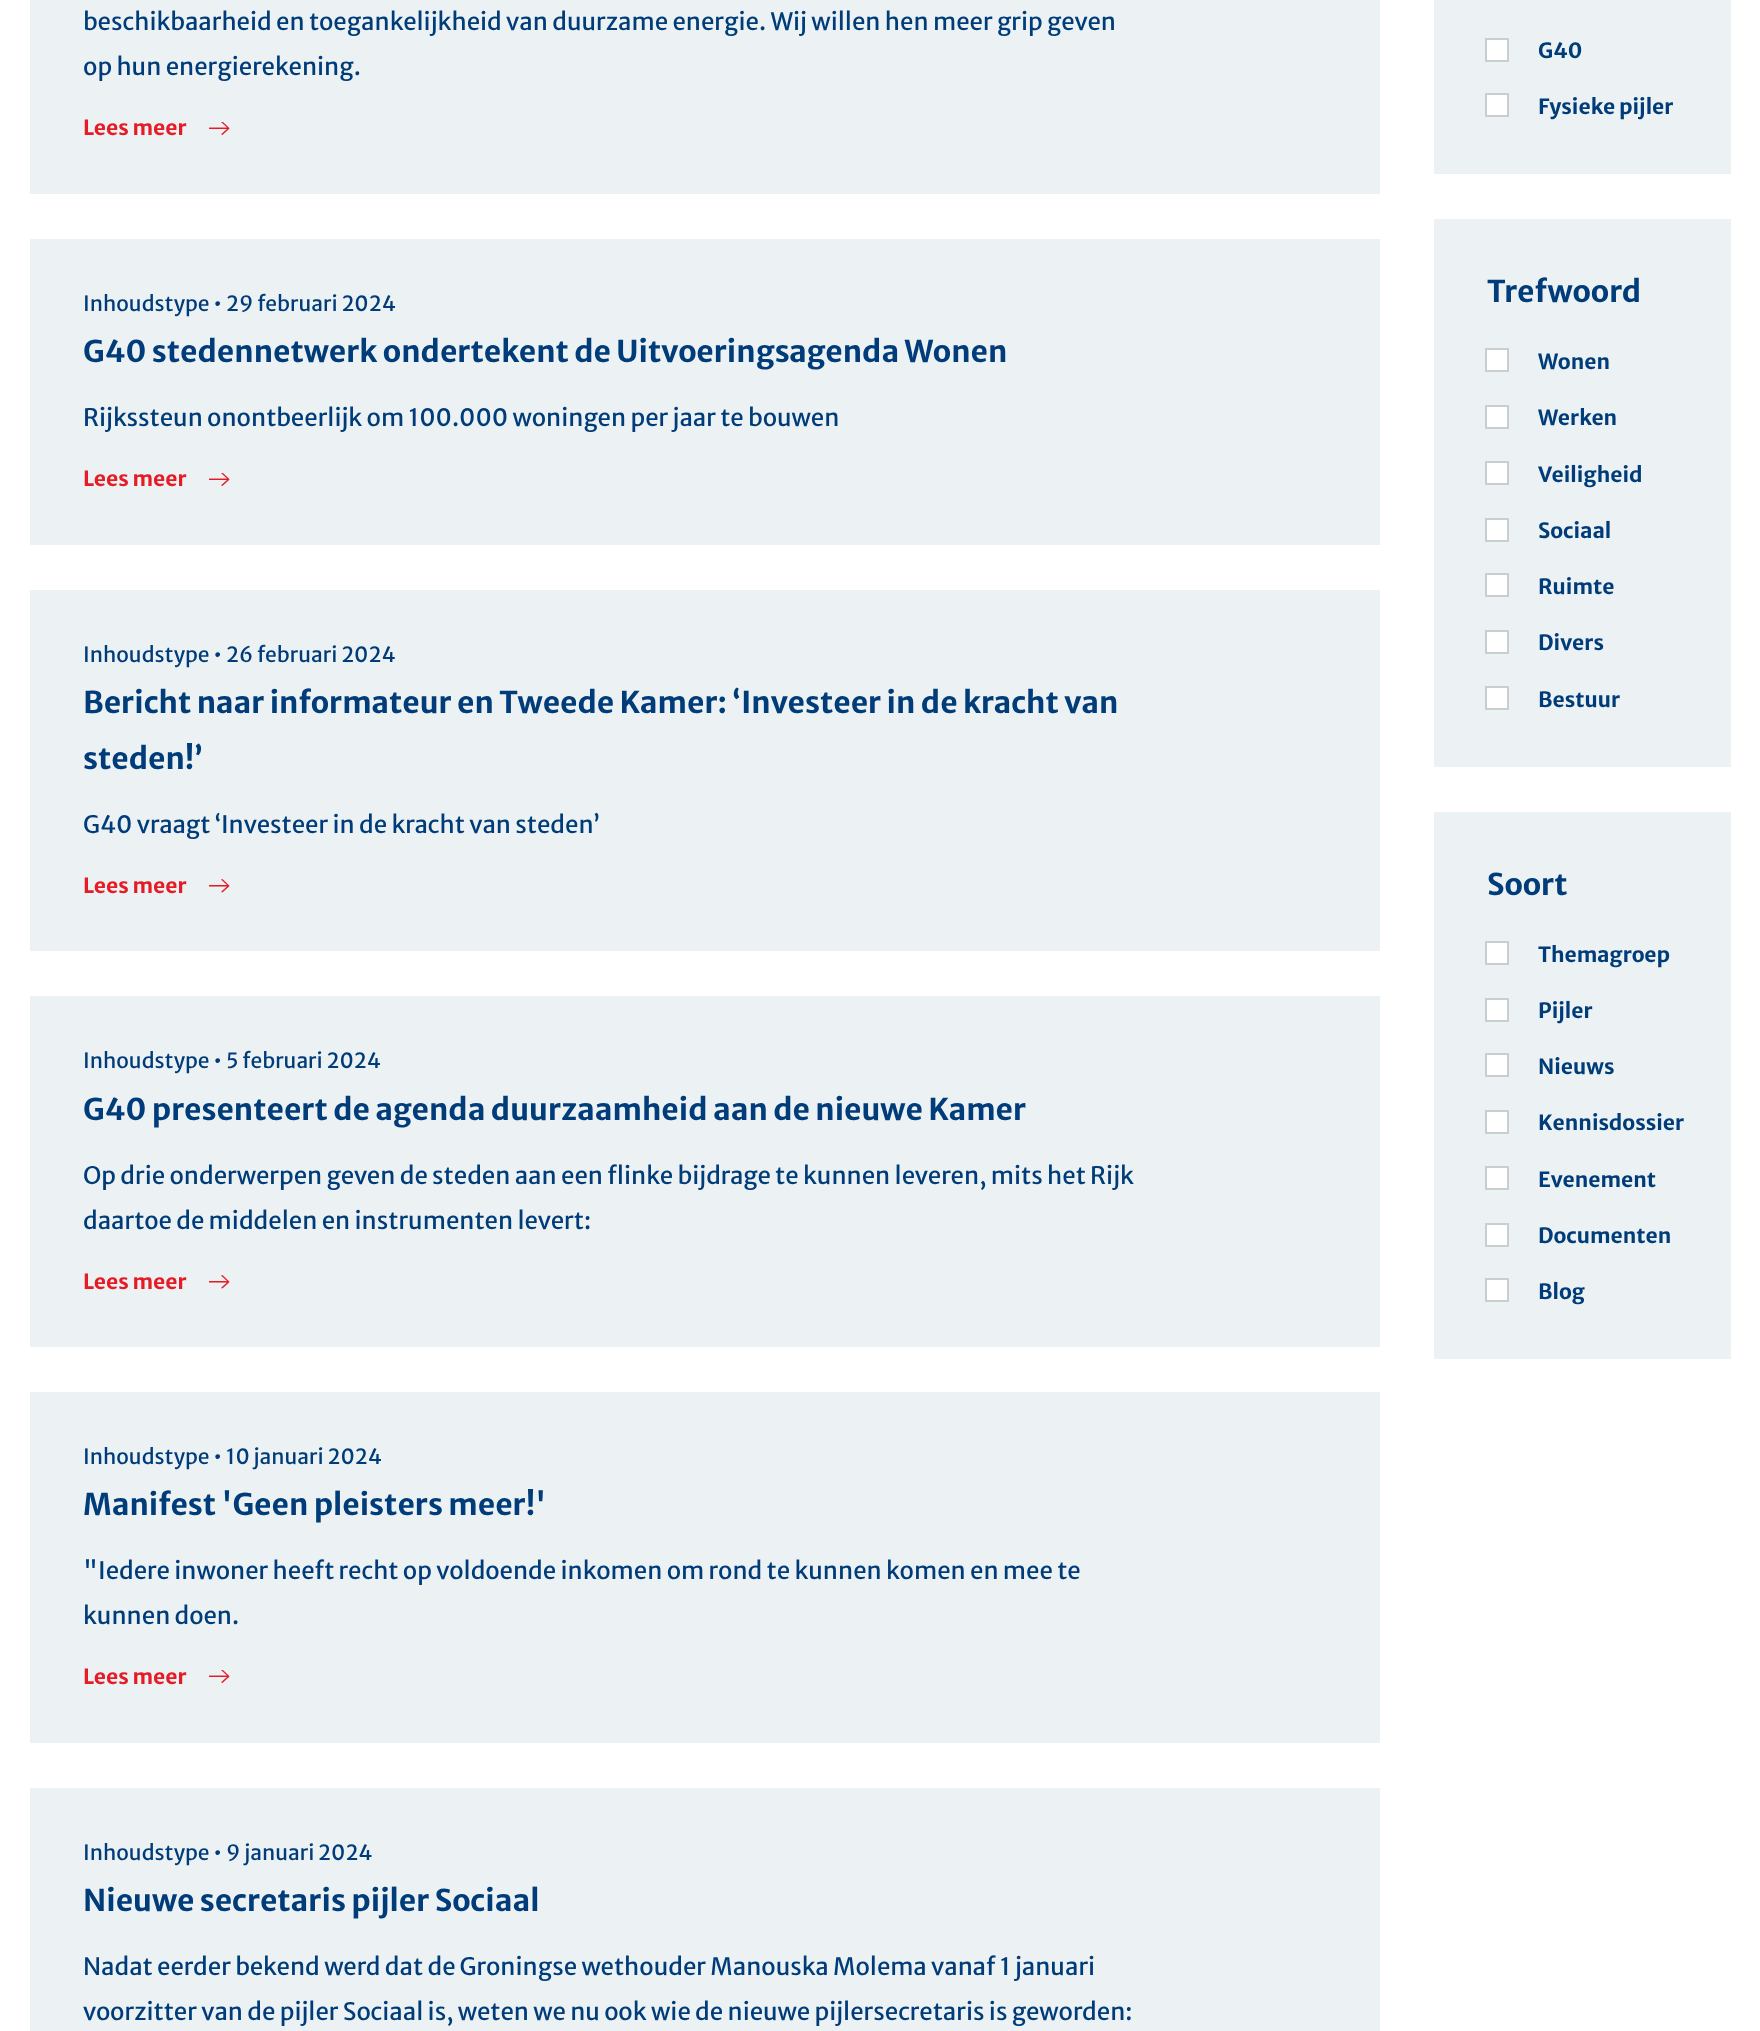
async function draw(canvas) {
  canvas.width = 1760;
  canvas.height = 2031;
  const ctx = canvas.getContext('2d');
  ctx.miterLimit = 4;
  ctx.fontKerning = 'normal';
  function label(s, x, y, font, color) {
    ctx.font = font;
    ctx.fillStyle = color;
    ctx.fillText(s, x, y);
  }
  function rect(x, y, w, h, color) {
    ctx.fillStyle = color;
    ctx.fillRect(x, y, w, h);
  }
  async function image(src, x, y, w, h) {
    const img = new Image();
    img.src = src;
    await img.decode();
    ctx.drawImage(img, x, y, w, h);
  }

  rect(0, 0, 1760, 2031, '#fff');
  rect(30, 0, 1350, 194, '#ecf2f3');
  label('beschikbaarheid en toegankelijkheid van duurzame energie. Wij willen hen meer grip geven', 83, 30, '24px Merriweather Sans', '#003c79');
  label('op hun energierekening.', 83, 75, '24px Merriweather Sans', '#003c79');
  label('Lees meer', 83, 135, 'bold 21px Merriweather Sans', '#e51b26');
  await image('assets/img1.png', 209, 122, 21, 13);
  rect(30, 239, 1350, 306, '#ecf2f3');
  label('Inhoudstype • 29 februari 2024', 83, 311, '21px Merriweather Sans', '#003c79');
  label('G40 stedennetwerk ondertekent de Uitvoeringsagenda Wonen', 83, 362, 'bold 30px Merriweather Sans', '#003c79');
  label('Rijkssteun onontbeerlijk om 100.000 woningen per jaar te bouwen', 83, 426, '24px Merriweather Sans', '#003c79');
  label('Lees meer', 83, 486, 'bold 21px Merriweather Sans', '#e51b26');
  await image('assets/img1.png', 209, 473, 21, 13);
  rect(30, 590, 1350, 361, '#ecf2f3');
  label('Inhoudstype • 26 februari 2024', 83, 662, '21px Merriweather Sans', '#003c79');
  label('Bericht naar informateur en Tweede Kamer: ‘Investeer in de kracht van', 83, 713, 'bold 30px Merriweather Sans', '#003c79');
  label('steden!’', 83, 769, 'bold 30px Merriweather Sans', '#003c79');
  label('G40 vraagt ‘Investeer in de kracht van steden’', 83, 833, '24px Merriweather Sans', '#003c79');
  label('Lees meer', 83, 893, 'bold 21px Merriweather Sans', '#e51b26');
  await image('assets/img2.png', 209, 879, 21, 14);
  rect(30, 996, 1350, 351, '#ecf2f3');
  label('Inhoudstype • 5 februari 2024', 83, 1068, '21px Merriweather Sans', '#003c79');
  label('G40 presenteert de agenda duurzaamheid aan de nieuwe Kamer', 83, 1120, 'bold 30px Merriweather Sans', '#003c79');
  label('Op drie onderwerpen geven de steden aan een flinke bijdrage te kunnen leveren, mits het Rijk', 83, 1184, '24px Merriweather Sans', '#003c79');
  label('daartoe de middelen en instrumenten levert:', 83, 1229, '24px Merriweather Sans', '#003c79');
  label('Lees meer', 83, 1289, 'bold 21px Merriweather Sans', '#e51b26');
  await image('assets/img2.png', 209, 1275, 21, 14);
  rect(30, 1392, 1350, 351, '#ecf2f3');
  label('Inhoudstype • 10 januari 2024', 83, 1464, '21px Merriweather Sans', '#003c79');
  label('Manifest \'Geen pleisters meer!\'', 83, 1515, 'bold 30px Merriweather Sans', '#003c79');
  label('"Iedere inwoner heeft recht op voldoende inkomen om rond te kunnen komen en mee te', 83, 1579, '24px Merriweather Sans', '#003c79');
  label('kunnen doen.', 83, 1624, '24px Merriweather Sans', '#003c79');
  label('Lees meer', 83, 1684, 'bold 21px Merriweather Sans', '#e51b26');
  await image('assets/img1.png', 209, 1670, 21, 13);
  rect(30, 1788, 1350, 243, '#ecf2f3');
  label('Inhoudstype • 9 januari 2024', 83, 1860, '21px Merriweather Sans', '#003c79');
  label('Nieuwe secretaris pijler Sociaal', 83, 1911, 'bold 30px Merriweather Sans', '#003c79');
  label('Nadat eerder bekend werd dat de Groningse wethouder Manouska Molema vanaf 1 januari', 83, 1975, '24px Merriweather Sans', '#003c79');
  label('voorzitter van de pijler Sociaal is, weten we nu ook wie de nieuwe pijlersecretaris is geworden:', 83, 2020, '24px Merriweather Sans', '#003c79');
  rect(1434, 0, 297, 174, '#ecf2f3');
  ctx.fillStyle = '#fff';
  ctx.beginPath();
  ctx.rect(1486, 39, 22, 22);
  ctx.fill();
  ctx.strokeStyle = '#c9cecf';
  ctx.lineWidth = 2;
  ctx.stroke();
  label('G40', 1538, 58, 'bold 21px Merriweather Sans', '#003c79');
  ctx.fillStyle = '#fff';
  ctx.beginPath();
  ctx.rect(1486, 94, 22, 22);
  ctx.fill();
  ctx.stroke();
  label('Fysieke pijler', 1538, 114, 'bold 21px Merriweather Sans', '#003c79');
  rect(1434, 219, 297, 548, '#ecf2f3');
  label('Trefwoord', 1487, 302, 'bold 30px Merriweather Sans', '#003c79');
  ctx.fillStyle = '#fff';
  ctx.beginPath();
  ctx.rect(1486, 349, 22, 22);
  ctx.fill();
  ctx.stroke();
  label('Wonen', 1538, 369, 'bold 21px Merriweather Sans', '#003c79');
  ctx.fillStyle = '#fff';
  ctx.beginPath();
  ctx.rect(1486, 406, 22, 22);
  ctx.fill();
  ctx.stroke();
  label('Werken', 1538, 425, 'bold 21px Merriweather Sans', '#003c79');
  ctx.fillStyle = '#fff';
  ctx.beginPath();
  ctx.rect(1486, 462, 22, 22);
  ctx.fill();
  ctx.stroke();
  label('Veiligheid', 1538, 482, 'bold 21px Merriweather Sans', '#003c79');
  ctx.fillStyle = '#fff';
  ctx.beginPath();
  ctx.rect(1486, 519, 22, 22);
  ctx.fill();
  ctx.stroke();
  label('Sociaal', 1538, 538, 'bold 21px Merriweather Sans', '#003c79');
  ctx.fillStyle = '#fff';
  ctx.beginPath();
  ctx.rect(1486, 574, 22, 22);
  ctx.fill();
  ctx.stroke();
  label('Ruimte', 1538, 594, 'bold 21px Merriweather Sans', '#003c79');
  ctx.fillStyle = '#fff';
  ctx.beginPath();
  ctx.rect(1486, 631, 22, 22);
  ctx.fill();
  ctx.stroke();
  label('Divers', 1538, 650, 'bold 21px Merriweather Sans', '#003c79');
  ctx.fillStyle = '#fff';
  ctx.beginPath();
  ctx.rect(1486, 687, 22, 22);
  ctx.fill();
  ctx.stroke();
  label('Bestuur', 1538, 707, 'bold 21px Merriweather Sans', '#003c79');
  rect(1434, 812, 297, 547, '#ecf2f3');
  label('Soort', 1487, 895, 'bold 30px Merriweather Sans', '#003c79');
  ctx.fillStyle = '#fff';
  ctx.beginPath();
  ctx.rect(1486, 942, 22, 22);
  ctx.fill();
  ctx.stroke();
  label('Themagroep', 1538, 962, 'bold 21px Merriweather Sans', '#003c79');
  ctx.fillStyle = '#fff';
  ctx.beginPath();
  ctx.rect(1486, 999, 22, 22);
  ctx.fill();
  ctx.stroke();
  label('Pijler', 1538, 1018, 'bold 21px Merriweather Sans', '#003c79');
  ctx.fillStyle = '#fff';
  ctx.beginPath();
  ctx.rect(1486, 1054, 22, 22);
  ctx.fill();
  ctx.stroke();
  label('Nieuws', 1538, 1074, 'bold 21px Merriweather Sans', '#003c79');
  ctx.fillStyle = '#fff';
  ctx.beginPath();
  ctx.rect(1486, 1111, 22, 22);
  ctx.fill();
  ctx.stroke();
  label('Kennisdossier', 1538, 1130, 'bold 21px Merriweather Sans', '#003c79');
  ctx.fillStyle = '#fff';
  ctx.beginPath();
  ctx.rect(1486, 1167, 22, 22);
  ctx.fill();
  ctx.stroke();
  label('Evenement', 1538, 1187, 'bold 21px Merriweather Sans', '#003c79');
  ctx.fillStyle = '#fff';
  ctx.beginPath();
  ctx.rect(1486, 1224, 22, 22);
  ctx.fill();
  ctx.stroke();
  label('Documenten', 1538, 1243, 'bold 21px Merriweather Sans', '#003c79');
  ctx.fillStyle = '#fff';
  ctx.beginPath();
  ctx.rect(1486, 1279, 22, 22);
  ctx.fill();
  ctx.stroke();
  label('Blog', 1538, 1299, 'bold 21px Merriweather Sans', '#003c79');
}

draw(document.querySelector('canvas'));
